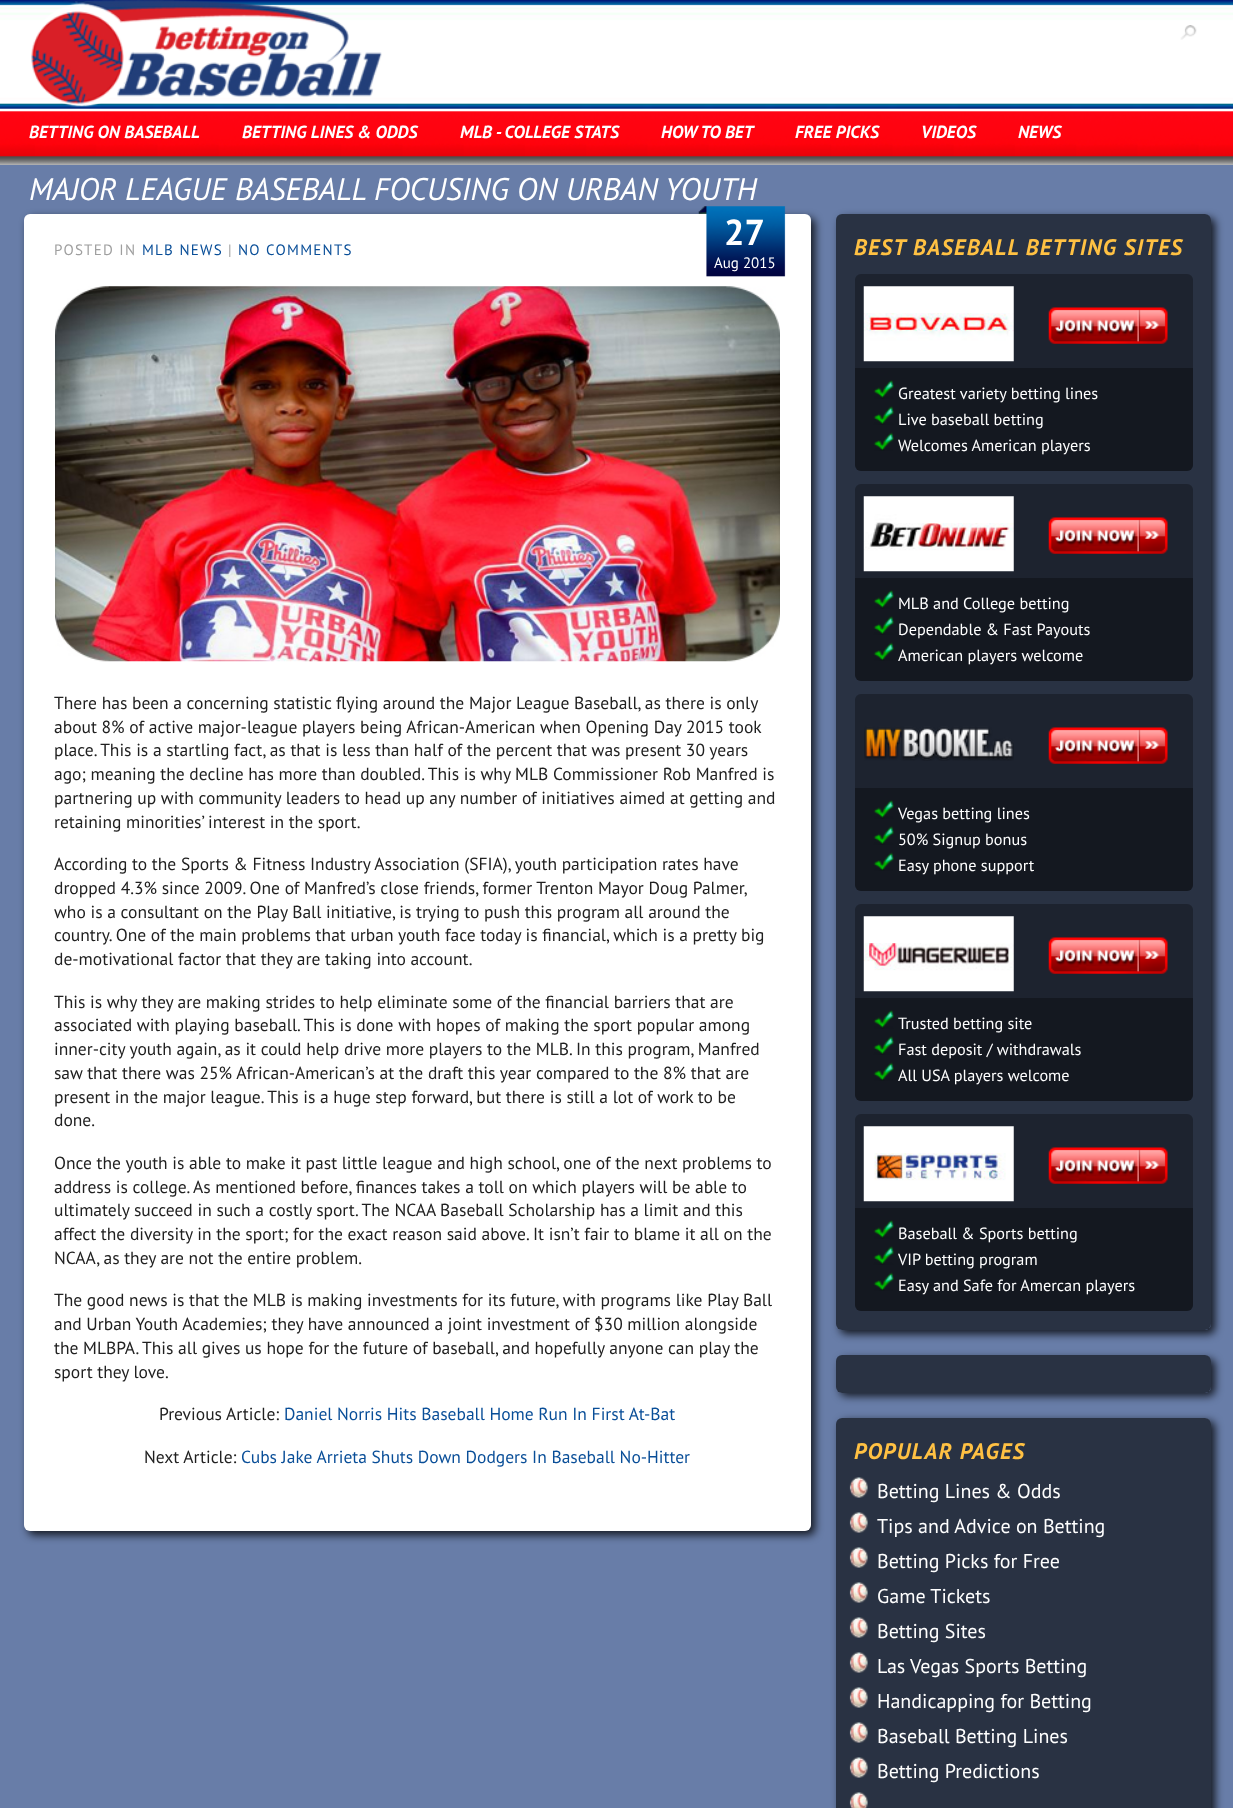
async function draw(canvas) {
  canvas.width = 1233;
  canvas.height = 1808;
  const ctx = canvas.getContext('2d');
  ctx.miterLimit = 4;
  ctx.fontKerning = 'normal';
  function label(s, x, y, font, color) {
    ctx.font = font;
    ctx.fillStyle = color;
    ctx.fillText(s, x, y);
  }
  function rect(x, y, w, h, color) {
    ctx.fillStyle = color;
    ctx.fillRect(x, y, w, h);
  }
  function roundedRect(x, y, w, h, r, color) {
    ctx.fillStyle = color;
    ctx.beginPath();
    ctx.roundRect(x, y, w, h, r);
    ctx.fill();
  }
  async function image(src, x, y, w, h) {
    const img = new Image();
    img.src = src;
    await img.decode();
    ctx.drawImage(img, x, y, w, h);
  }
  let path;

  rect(0, 0, 1233, 1808, '#687da8');
  await image('assets/img1.png', 0, 0, 1233, 165);
  await image('assets/img2.png', 31, 0, 351, 107);
  await image('assets/img3.png', 1180, 25, 17, 15);
  label('BETTING ON BASEBALL', 29, 138, 'italic bold 17.5px PT Sans', '#fff');
  label('BETTING LINES & ODDS', 242, 138, 'italic bold 17.5px PT Sans', '#fff');
  label('MLB - COLLEGE STATS', 460, 138, 'italic bold 17.5px PT Sans', '#fff');
  label('HOW TO BET', 661, 138, 'italic bold 17.5px PT Sans', '#fff');
  label('FREE PICKS', 795, 138, 'italic bold 17.5px PT Sans', '#fff');
  label('VIDEOS', 921, 138, 'italic bold 17.5px PT Sans', '#fff');
  label('NEWS', 1018, 138, 'italic bold 17.5px PT Sans', '#fff');
  label('MAJOR LEAGUE BASEBALL FOCUSING ON URBAN YOUTH', 29, 200, 'italic 31.25px PT Sans', '#fff');
  ctx.fillStyle = '#000000cc';
  ctx.filter = 'blur(4px)';
  ctx.beginPath();
  ctx.roundRect(28, 218, 787, 1317, 6);
  ctx.fill();
  ctx.filter = 'none';
  roundedRect(24, 214, 787, 1317, 6, '#fff');
  await image('assets/img4.png', 698, 206, 88, 71);
  label('27', 724, 245, 'bold 36px PT Sans', '#fff');
  label('Aug 2015', 714, 268, '15px PT Sans', '#fff');
  ctx.letterSpacing = '1.25px';
  label('POSTED IN', 54, 255, '15px PT Sans', '#9f9f9f');
  label('MLB NEWS', 142, 255, '15px PT Sans', '#094e98');
  label('|', 228, 255, '15px PT Sans', '#9f9f9f');
  label('NO COMMENTS', 238, 255, '15px PT Sans', '#094e98');
  await image('assets/img5.png', 55, 286, 725, 376);
  ctx.letterSpacing = '0px';
  label('There has been a concerning statistic flying around the Major League Baseball, as there is only', 54, 709, '17.5px PT Sans', '#202020');
  label('about 8% of active major-league players being African-American when Opening Day 2015 took', 54, 733, '17.5px PT Sans', '#202020');
  label('place. This is a startling fact, as that is less than half of the percent that was present 30 years', 54, 756, '17.5px PT Sans', '#202020');
  label('ago; meaning the decline has more than doubled. This is why MLB Commissioner Rob Manfred is', 54, 780, '17.5px PT Sans', '#202020');
  label('partnering up with community leaders to head up any number of initiatives aimed at getting and', 54, 804, '17.5px PT Sans', '#202020');
  label('retaining minorities’ interest in the sport.', 54, 828, '17.5px PT Sans', '#202020');
  label('According to the Sports & Fitness Industry Association (SFIA), youth participation rates have', 54, 870, '17.5px PT Sans', '#202020');
  label('dropped 4.3% since 2009. One of Manfred’s close friends, former Trenton Mayor Doug Palmer,', 54, 894, '17.5px PT Sans', '#202020');
  label('who is a consultant on the Play Ball initiative, is trying to push this program all around the', 54, 918, '17.5px PT Sans', '#202020');
  label('country. One of the main problems that urban youth face today is financial, which is a pretty big', 54, 941, '17.5px PT Sans', '#202020');
  label('de-motivational factor that they are taking into account.', 54, 965, '17.5px PT Sans', '#202020');
  label('This is why they are making strides to help eliminate some of the financial barriers that are', 54, 1008, '17.5px PT Sans', '#202020');
  label('associated with playing baseball. This is done with hopes of making the sport popular among', 54, 1031, '17.5px PT Sans', '#202020');
  label('inner-city youth again, as it could help drive more players to the MLB. In this program, Manfred', 54, 1055, '17.5px PT Sans', '#202020');
  label('saw that there was 25% African-American’s at the draft this year compared to the 8% that are', 54, 1079, '17.5px PT Sans', '#202020');
  label('present in the major league. This is a huge step forward, but there is still a lot of work to be', 54, 1103, '17.5px PT Sans', '#202020');
  label('done.', 54, 1126, '17.5px PT Sans', '#202020');
  label('Once the youth is able to make it past little league and high school, one of the next problems to', 54, 1169, '17.5px PT Sans', '#202020');
  label('address is college. As mentioned before, finances takes a toll on which players will be able to', 54, 1193, '17.5px PT Sans', '#202020');
  label('ultimately succeed in such a costly sport. The NCAA Baseball Scholarship has a limit and this', 54, 1216, '17.5px PT Sans', '#202020');
  label('affect the diversity in the sport; for the exact reason said above. It isn’t fair to blame it all on the', 54, 1240, '17.5px PT Sans', '#202020');
  label('NCAA, as they are not the entire problem.', 54, 1264, '17.5px PT Sans', '#202020');
  label('The good news is that the MLB is making investments for its future, with programs like Play Ball', 54, 1306, '17.5px PT Sans', '#202020');
  label('and Urban Youth Academies; they have announced a joint investment of $30 million alongside', 54, 1330, '17.5px PT Sans', '#202020');
  label('the MLBPA. This all gives us hope for the future of baseball, and hopefully anyone can play the', 54, 1354, '17.5px PT Sans', '#202020');
  label('sport they love.', 54, 1378, '17.5px PT Sans', '#202020');
  label('Previous Article:', 159, 1420, '17.5px PT Sans', '#202020');
  label('Daniel Norris Hits Baseball Home Run In First At-Bat', 284, 1420, '17.5px PT Sans', '#094e98');
  label('Next Article:', 144, 1463, '17.5px PT Sans', '#202020');
  label('Cubs Jake Arrieta Shuts Down Dodgers In Baseball No-Hitter', 241, 1463, '17.5px PT Sans', '#094e98');
  ctx.save();
  path = new Path2D('M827 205H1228V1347H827ZM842 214H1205C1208.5 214 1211 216.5 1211 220V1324C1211 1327.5 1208.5 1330 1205 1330H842C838.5 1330 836 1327.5 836 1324V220C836 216.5 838.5 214 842 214Z');
  ctx.clip(path, 'evenodd');
  ctx.fillStyle = '#000000cc';
  ctx.filter = 'blur(4px)';
  ctx.beginPath();
  ctx.roundRect(840, 218, 375, 1116, 6);
  ctx.fill();
  ctx.filter = 'none';
  ctx.restore();
  roundedRect(836, 214, 375, 1116, 6, '#00000099');
  ctx.letterSpacing = '1.25px';
  label('BEST BASEBALL BETTING SITES', 854, 255, 'italic bold 22.5px PT Sans', '#ffc143');
  roundedRect(855, 274, 338, 197, 6, '#1d232f');
  await image('assets/img6.png', 863, 286, 151, 76);
  await image('assets/img7.png', 1048, 307, 120, 37);
  ctx.fillStyle = '#0000004d';
  ctx.beginPath();
  ctx.roundRect(855, 368, 338, 103, [0, 0, 6, 6]);
  ctx.fill();
  await image('assets/img8.png', 873, 380, 21, 19);
  ctx.letterSpacing = '0px';
  label('Greatest variety betting lines', 898, 399, '16.25px PT Sans', '#fff');
  await image('assets/img9.png', 873, 406, 21, 19);
  label('Live baseball betting', 898, 425, '16.25px PT Sans', '#fff');
  await image('assets/img10.png', 873, 432, 21, 19);
  label('Welcomes American players', 898, 451, '16.25px PT Sans', '#fff');
  roundedRect(855, 484, 338, 197, 6, '#1d232f');
  await image('assets/img11.png', 863, 496, 151, 76);
  await image('assets/img7.png', 1048, 517, 120, 37);
  ctx.fillStyle = '#0000004d';
  ctx.beginPath();
  ctx.roundRect(855, 578, 338, 103, [0, 0, 6, 6]);
  ctx.fill();
  await image('assets/img8.png', 873, 590, 21, 19);
  label('MLB and College betting', 898, 609, '16.25px PT Sans', '#fff');
  await image('assets/img9.png', 873, 616, 21, 19);
  label('Dependable & Fast Payouts', 898, 635, '16.25px PT Sans', '#fff');
  await image('assets/img10.png', 873, 642, 21, 19);
  label('American players welcome', 898, 661, '16.25px PT Sans', '#fff');
  roundedRect(855, 694, 338, 197, 6, '#1d232f');
  await image('assets/img12.png', 864, 726, 150, 35);
  await image('assets/img7.png', 1048, 727, 120, 37);
  ctx.fillStyle = '#0000004d';
  ctx.beginPath();
  ctx.roundRect(855, 788, 338, 103, [0, 0, 6, 6]);
  ctx.fill();
  await image('assets/img8.png', 873, 800, 21, 19);
  label('Vegas betting lines', 898, 819, '16.25px PT Sans', '#fff');
  await image('assets/img9.png', 873, 826, 21, 19);
  label('50% Signup bonus', 898, 845, '16.25px PT Sans', '#fff');
  await image('assets/img10.png', 873, 852, 21, 19);
  label('Easy phone support', 898, 871, '16.25px PT Sans', '#fff');
  roundedRect(855, 904, 338, 197, 6, '#1d232f');
  await image('assets/img13.png', 863, 916, 151, 76);
  await image('assets/img7.png', 1048, 937, 120, 37);
  ctx.fillStyle = '#0000004d';
  ctx.beginPath();
  ctx.roundRect(855, 998, 338, 103, [0, 0, 6, 6]);
  ctx.fill();
  await image('assets/img8.png', 873, 1010, 21, 19);
  label('Trusted betting site', 898, 1029, '16.25px PT Sans', '#fff');
  await image('assets/img9.png', 873, 1036, 21, 19);
  label('Fast deposit / withdrawals', 898, 1055, '16.25px PT Sans', '#fff');
  await image('assets/img10.png', 873, 1062, 21, 19);
  label('All USA players welcome', 898, 1081, '16.25px PT Sans', '#fff');
  roundedRect(855, 1114, 338, 197, 6, '#1d232f');
  await image('assets/img14.png', 863, 1126, 151, 76);
  await image('assets/img15.png', 1048, 1147, 120, 37);
  ctx.fillStyle = '#0000004d';
  ctx.beginPath();
  ctx.roundRect(855, 1208, 338, 103, [0, 0, 6, 6]);
  ctx.fill();
  await image('assets/img8.png', 873, 1220, 21, 19);
  label('Baseball & Sports betting', 898, 1239, '16.25px PT Sans', '#fff');
  await image('assets/img9.png', 873, 1246, 21, 19);
  label('VIP betting program', 898, 1265, '16.25px PT Sans', '#fff');
  await image('assets/img10.png', 873, 1272, 21, 19);
  label('Easy and Safe for Amercan players', 898, 1291, '16.25px PT Sans', '#fff');
  ctx.save();
  path = new Path2D('M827 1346H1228V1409H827ZM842 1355H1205C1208.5 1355 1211 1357.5 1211 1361V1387C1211 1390.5 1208.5 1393 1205 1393H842C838.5 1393 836 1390.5 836 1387V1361C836 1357.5 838.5 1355 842 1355Z');
  ctx.clip(path, 'evenodd');
  ctx.fillStyle = '#000000cc';
  ctx.filter = 'blur(4px)';
  ctx.beginPath();
  ctx.roundRect(840, 1359, 375, 37, 6);
  ctx.fill();
  ctx.filter = 'none';
  ctx.restore();
  roundedRect(836, 1355, 375, 38, 6, '#00000099');
  ctx.save();
  path = new Path2D('M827 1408H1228V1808H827ZM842 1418H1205C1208.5 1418 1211 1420.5 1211 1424V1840C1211 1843.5 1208.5 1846 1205 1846H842C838.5 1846 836 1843.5 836 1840V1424C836 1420.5 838.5 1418 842 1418Z');
  ctx.clip(path, 'evenodd');
  ctx.fillStyle = '#000000cc';
  ctx.filter = 'blur(4px)';
  ctx.beginPath();
  ctx.roundRect(840, 1421, 375, 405, 6);
  ctx.fill();
  ctx.filter = 'none';
  ctx.restore();
  roundedRect(836, 1418, 375, 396, 6, '#00000099');
  ctx.letterSpacing = '1.25px';
  label('POPULAR PAGES', 854, 1459, 'italic bold 22.5px PT Sans', '#ffc143');
  await image('assets/img16.png', 849, 1477, 19, 21);
  ctx.letterSpacing = '0px';
  label('Betting Lines & Odds', 877, 1498, '20px PT Sans', '#fff');
  await image('assets/img16.png', 849, 1512, 19, 21);
  label('Tips and Advice on Betting', 877, 1533, '20px PT Sans', '#fff');
  await image('assets/img16.png', 849, 1547, 19, 21);
  label('Betting Picks for Free', 877, 1568, '20px PT Sans', '#fff');
  await image('assets/img16.png', 849, 1582, 19, 21);
  label('Game Tickets', 877, 1603, '20px PT Sans', '#fff');
  await image('assets/img16.png', 849, 1617, 19, 21);
  label('Betting Sites', 877, 1638, '20px PT Sans', '#fff');
  await image('assets/img16.png', 849, 1652, 19, 21);
  label('Las Vegas Sports Betting', 877, 1673, '20px PT Sans', '#fff');
  await image('assets/img16.png', 849, 1687, 19, 21);
  label('Handicapping for Betting', 877, 1708, '20px PT Sans', '#fff');
  await image('assets/img16.png', 849, 1722, 19, 21);
  label('Baseball Betting Lines', 877, 1743, '20px PT Sans', '#fff');
  await image('assets/img16.png', 849, 1757, 19, 21);
  label('Betting Predictions', 877, 1778, '20px PT Sans', '#fff');
  await image('assets/img17.png', 849, 1792, 19, 16);
}

draw(document.querySelector('canvas'));
